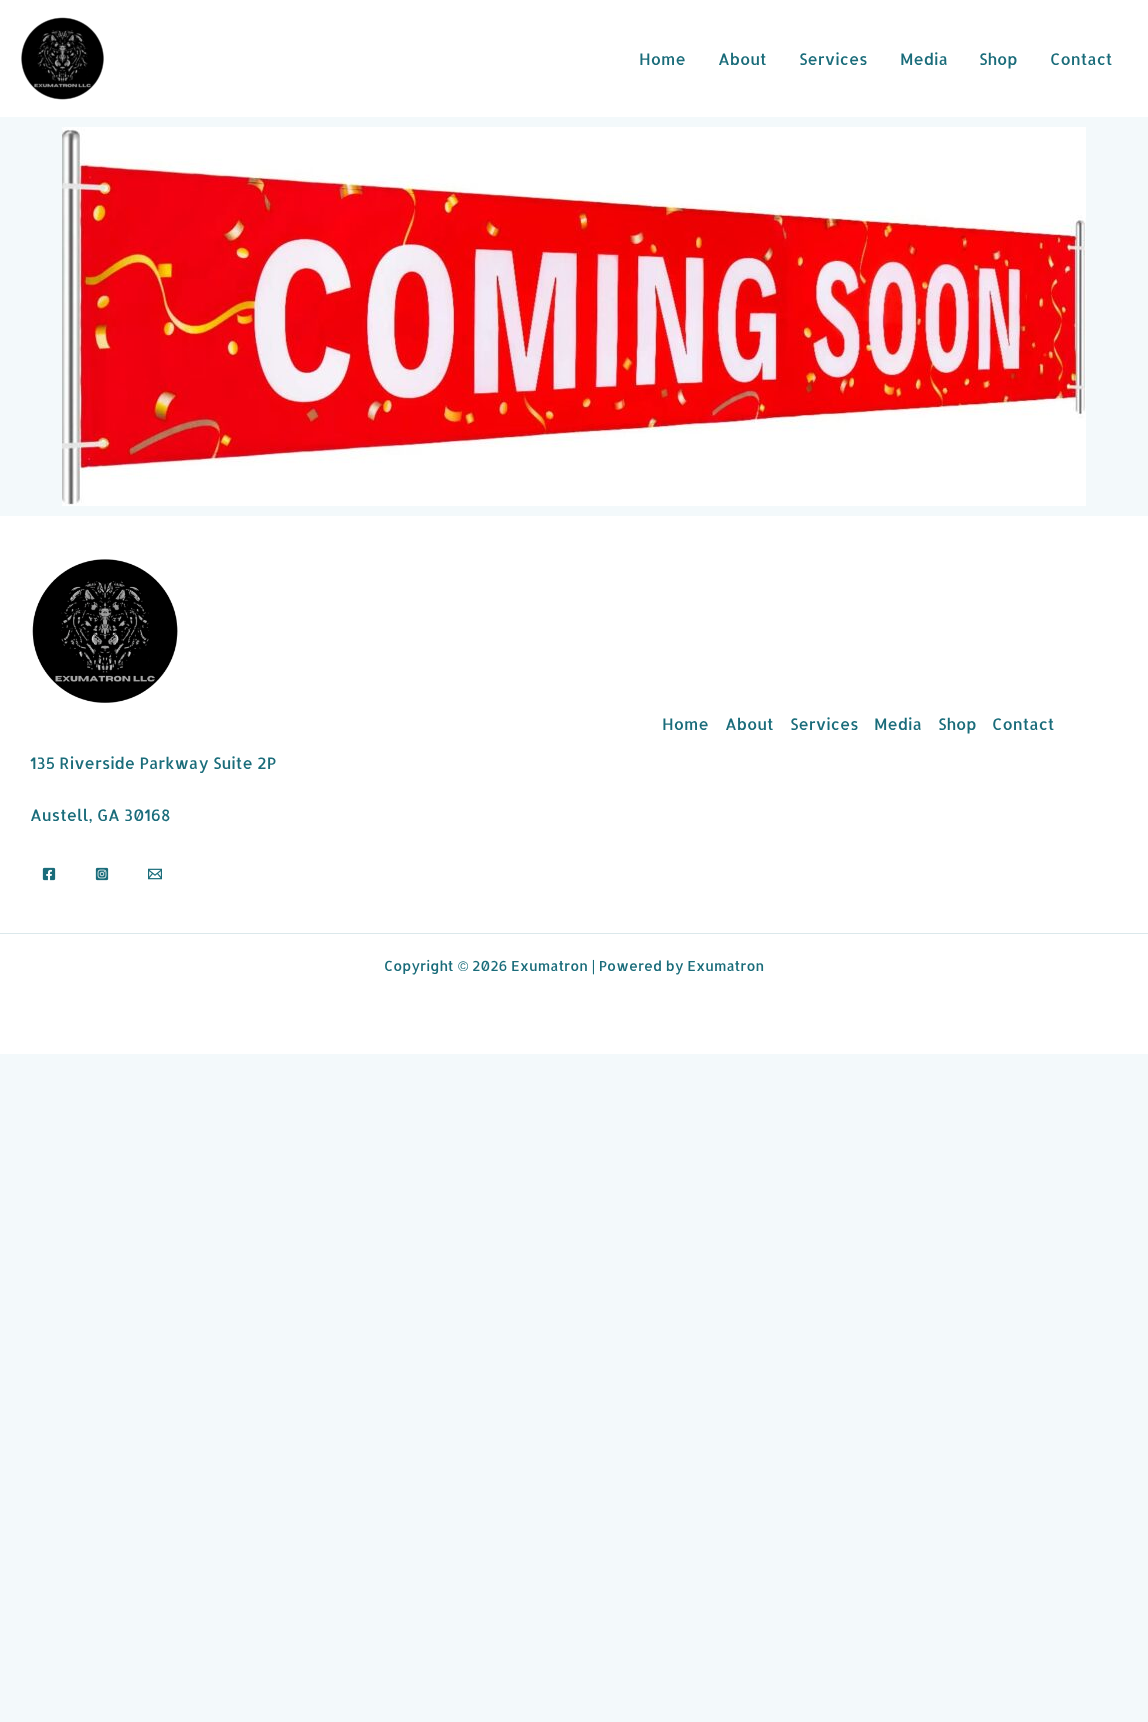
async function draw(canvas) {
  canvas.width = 1148;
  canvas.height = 1722;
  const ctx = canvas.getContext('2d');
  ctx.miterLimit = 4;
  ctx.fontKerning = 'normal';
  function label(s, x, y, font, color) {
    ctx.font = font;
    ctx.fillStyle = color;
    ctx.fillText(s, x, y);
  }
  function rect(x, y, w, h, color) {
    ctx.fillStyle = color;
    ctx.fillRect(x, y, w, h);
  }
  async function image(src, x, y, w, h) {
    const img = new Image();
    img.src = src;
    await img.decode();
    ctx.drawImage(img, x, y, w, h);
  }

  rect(0, 0, 1148, 1722, '#f3f9fb');
  rect(0, 0, 1148, 117, '#fff');
  await image('assets/img1.png', 21, 17, 83, 83);
  label('Home', 639, 65, '16px Allerta', '#1a6c7a');
  label('About', 718, 65, '16px Allerta', '#1a6c7a');
  label('Services', 799, 65, '16px Allerta', '#1a6c7a');
  label('Media', 900, 65, '16px Allerta', '#1a6c7a');
  label('Shop', 979, 65, '16px Allerta', '#1a6c7a');
  label('Contact', 1050, 65, '16px Allerta', '#1a6c7a');
  await image('assets/img2.png', 62, 127, 1024, 379);
  rect(0, 516, 1148, 538, '#fff');
  label('Home', 662, 730, '16px Allerta', '#1a6c7a');
  label('About', 725, 730, '16px Allerta', '#1a6c7a');
  label('Services', 790, 730, '16px Allerta', '#1a6c7a');
  label('Media', 874, 730, '16px Allerta', '#1a6c7a');
  label('Shop', 938, 730, '16px Allerta', '#1a6c7a');
  label('Contact', 992, 730, '16px Allerta', '#1a6c7a');
  await image('assets/img3.png', 32, 559, 146, 144);
  label('135 Riverside Parkway Suite 2P', 30, 769, '16px Allerta', '#1a6c7a');
  label('Austell, GA 30168', 30, 821, '16px Allerta', '#1a6c7a');
  await image('assets/img4.png', 42, 867, 14, 14);
  await image('assets/img5.png', 95, 867, 14, 14);
  await image('assets/img6.png', 148, 868, 14, 12);
  rect(0, 933, 1148, 1, '#dbe8eb');
  label('Copyright', 384, 971, '14px Allerta', '#1a6c7a');
  label('©', 458, 971, '14px Liberation Sans', '#1a6c7a');
  label('2026 Exumatron | Powered by Exumatron', 472, 971, '14px Allerta', '#1a6c7a');
}

draw(document.querySelector('canvas'));
